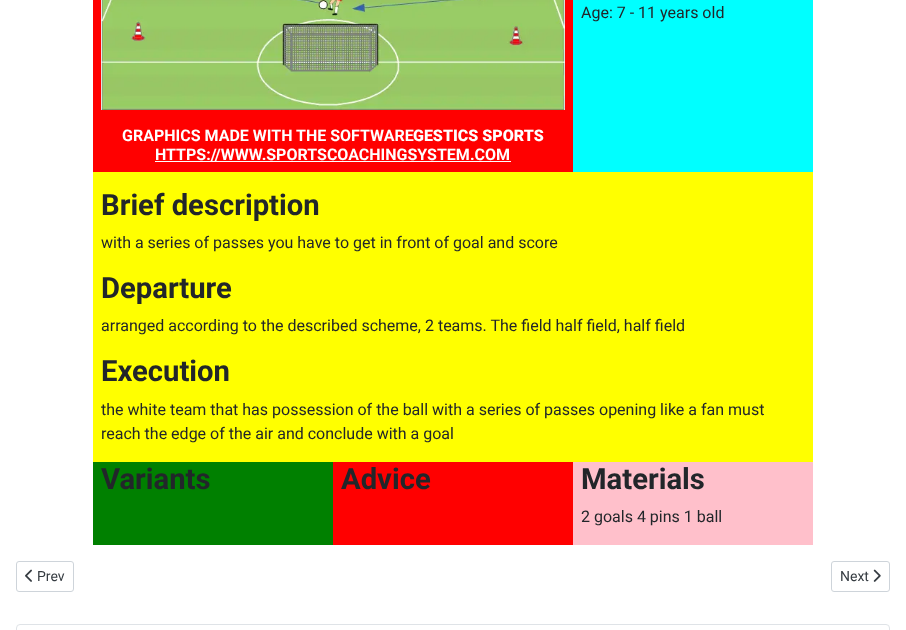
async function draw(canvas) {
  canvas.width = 906;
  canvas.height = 630;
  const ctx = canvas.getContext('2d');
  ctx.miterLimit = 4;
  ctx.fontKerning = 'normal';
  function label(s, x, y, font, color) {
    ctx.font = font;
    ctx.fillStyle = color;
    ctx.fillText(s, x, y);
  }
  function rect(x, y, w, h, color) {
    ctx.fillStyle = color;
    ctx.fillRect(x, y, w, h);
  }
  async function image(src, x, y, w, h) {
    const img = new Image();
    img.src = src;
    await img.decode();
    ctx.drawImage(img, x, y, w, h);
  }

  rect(0, 0, 906, 630, '#fff');
  rect(573, 0, 240, 172, '#0ff');
  label('Age: 7 - 11 years old', 581, 18, '16px Roboto', '#22262a');
  rect(93, 0, 480, 172, '#f00');
  await image('assets/img1.png', 101, 0, 464, 110);
  label('GRAPHICS MADE WITH THE SOFTWARE', 122, 141, 'bold 16px Roboto', '#fff');
  label('GESTICS SPORTS', 413, 141, '900 16px Roboto', '#fff');
  label('HTTPS://WWW.SPORTSCOACHINGSYSTEM.COM', 155, 160, 'bold 16px Roboto', '#fff');
  rect(155, 161, 356, 1, '#fff');
  rect(93, 172, 720, 290, '#ff0');
  label('Brief description', 101, 215, 'bold 29.25px Roboto', '#22262a');
  label('with a series of passes you have to get in front of goal and score', 101, 248, '16px Roboto', '#22262a');
  label('Departure', 101, 298, 'bold 29.25px Roboto', '#22262a');
  label('arranged according to the described scheme, 2 teams. The field half field, half field', 101, 331, '16px Roboto', '#22262a');
  label('Execution', 101, 381, 'bold 29.25px Roboto', '#22262a');
  label('the white team that has possession of the ball with a series of passes opening like a fan must', 101, 415, '16px Roboto', '#22262a');
  label('reach the edge of the air and conclude with a goal', 101, 439, '16px Roboto', '#22262a');
  rect(93, 462, 240, 83, '#008000');
  label('Variants', 101, 489, 'bold 29.25px Roboto', '#22262a');
  rect(333, 462, 240, 83, '#f00');
  label('Advice', 341, 489, 'bold 29.25px Roboto', '#22262a');
  rect(573, 462, 240, 83, '#ffc0cb');
  label('Materials', 581, 489, 'bold 29.25px Roboto', '#22262a');
  label('2 goals 4 pins 1 ball', 581, 522, '16px Roboto', '#22262a');
  ctx.beginPath();
  ctx.roundRect(16.5, 561.5, 57, 30, 2.5);
  ctx.strokeStyle = '#ced4da';
  ctx.stroke();
  await image('assets/img2.png', 25, 569, 7, 13);
  label('Prev', 37, 581, '14px Roboto', '#353b41');
  ctx.beginPath();
  ctx.roundRect(831.5, 561.5, 58, 30, 2.5);
  ctx.stroke();
  label('Next', 840, 581, '14px Roboto', '#353b41');
  await image('assets/img3.png', 873, 569, 8, 13);
  ctx.beginPath();
  ctx.roundRect(16.5, 624.5, 873, 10, 3.5);
  ctx.strokeStyle = '#dfe3e7';
  ctx.stroke();
}

draw(document.querySelector('canvas'));
